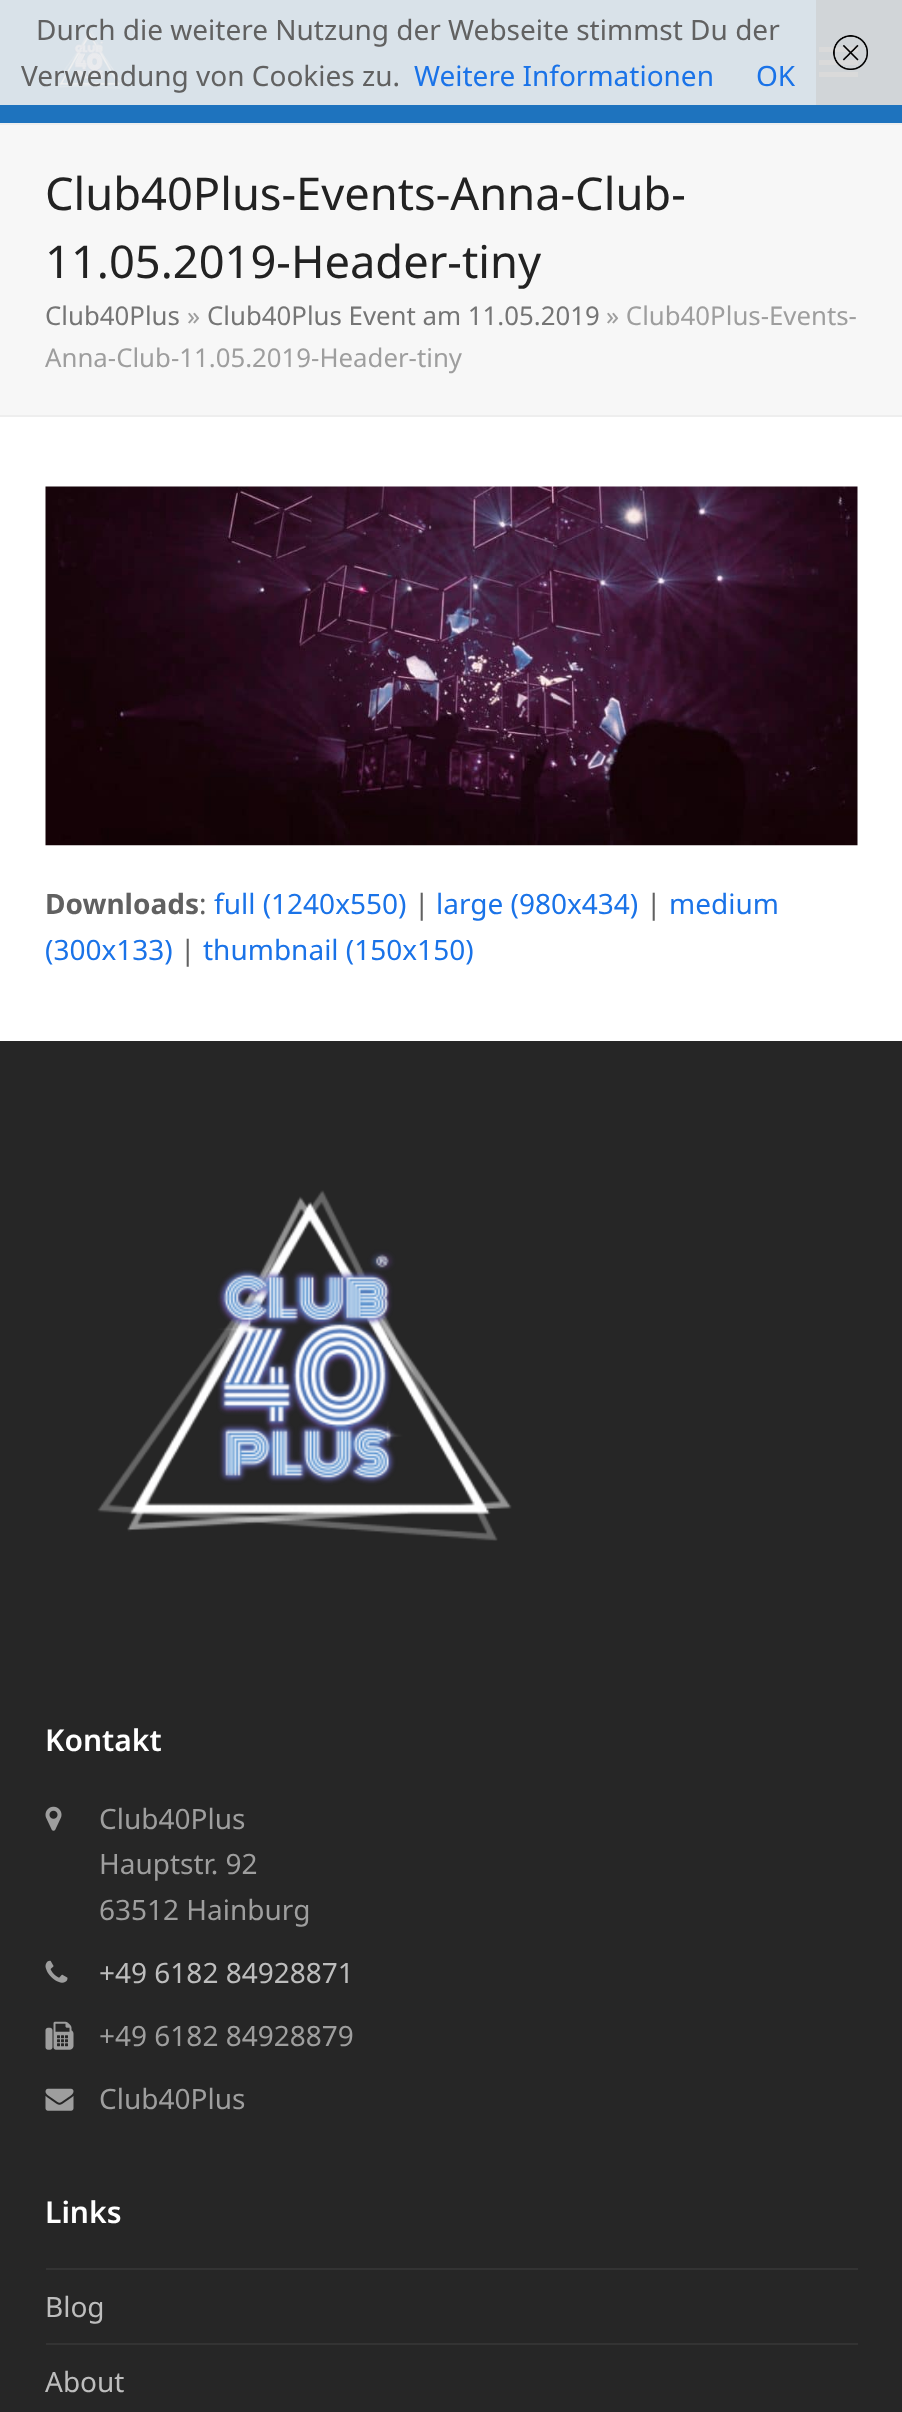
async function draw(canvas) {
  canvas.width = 902;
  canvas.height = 2412;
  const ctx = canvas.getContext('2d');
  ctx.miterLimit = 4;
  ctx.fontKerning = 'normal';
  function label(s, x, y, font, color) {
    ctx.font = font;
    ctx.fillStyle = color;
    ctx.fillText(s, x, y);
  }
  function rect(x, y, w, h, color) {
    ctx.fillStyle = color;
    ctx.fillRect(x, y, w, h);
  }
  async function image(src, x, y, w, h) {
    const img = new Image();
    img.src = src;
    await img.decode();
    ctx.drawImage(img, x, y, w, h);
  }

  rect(0, 0, 902, 2412, '#fff');
  rect(0, 0, 816, 105, '#d9e2e9');
  await image('assets/img2.png', 54, 30, 70, 60);
  label('Durch die weitere Nutzung der Webseite stimmst Du der', 36, 40, '28px Noto Sans', '#616161');
  label('Verwendung von Cookies zu.', 21, 86, '28px Noto Sans', '#616161');
  label('Weitere Informationen', 414, 86, '28px Noto Sans', '#1a73e8');
  label('OK', 756, 86, '28px Noto Sans', '#1a73e8');
  rect(816, 0, 86, 105, '#d1d5d8');
  rect(819, 60, 39, 5, '#dadada');
  rect(819, 47, 39, 5, '#dadada');
  await image('assets/img1.png', 833, 35, 35, 35);
  rect(0, 105, 902, 18, '#1e73be');
  rect(819, 72, 39, 5, '#dadada');
  rect(0, 125, 902, 290, '#f7f7f7');
  rect(0, 123, 902, 2, '#eee');
  rect(0, 415, 902, 2, '#eee');
  label('Club40Plus-Events-Anna-Club-', 45, 210, '45.25px Noto Sans', '#222');
  label('11.05.2019-Header-tiny', 45, 278, '45.25px Noto Sans', '#222');
  label('Club40Plus', 45, 325, '25.8px Noto Sans', '#757575');
  label('»', 187, 325, '25.8px Noto Sans', '#9e9e9e');
  label('Club40Plus Event am 11.05.2019', 207, 325, '25.8px Noto Sans', '#757575');
  label('» Club40Plus-Events-', 606, 325, '25.8px Noto Sans', '#9e9e9e');
  label('Anna-Club-11.05.2019-Header-tiny', 45, 367, '25.8px Noto Sans', '#9e9e9e');
  await image('assets/img3.png', 45, 486, 813, 360);
  label('Downloads', 45, 914, 'bold 28px Noto Sans', '#616161');
  label(':', 199, 914, '28px Noto Sans', '#616161');
  label('full (1240x550)', 214, 914, '28px Noto Sans', '#1a73e8');
  label('|', 414, 914, '28px Noto Sans', '#616161');
  label('large (980x434)', 436, 914, '28px Noto Sans', '#1a73e8');
  label('|', 646, 914, '28px Noto Sans', '#616161');
  label('medium', 669, 914, '28px Noto Sans', '#1a73e8');
  label('(300x133)', 45, 960, '28px Noto Sans', '#1a73e8');
  label('|', 180, 960, '28px Noto Sans', '#616161');
  label('thumbnail (150x150)', 203, 960, '28px Noto Sans', '#1a73e8');
  rect(0, 1041, 902, 1371, '#262626');
  await image('assets/img4.png', 97, 1190, 415, 351);
  label('Kontakt', 45, 1751, '600 30px Noto Sans', '#fff');
  await image('assets/img5.png', 45, 1806, 17, 25);
  label('Club40Plus', 99, 1829, '28px Noto Sans', '#9e9e9e');
  label('Hauptstr. 92', 99, 1874, '28px Noto Sans', '#9e9e9e');
  label('63512 Hainburg', 99, 1920, '28px Noto Sans', '#9e9e9e');
  await image('assets/img6.png', 45, 1960, 23, 23);
  label('+49 6182 84928871', 99, 1983, '28px Noto Sans', '#bdbdbd');
  await image('assets/img7.png', 45, 2021, 29, 29);
  label('+49 6182 84928879', 99, 2046, '28px Noto Sans', '#9e9e9e');
  await image('assets/img8.png', 45, 2088, 29, 23);
  label('Club40Plus', 99, 2109, '28px Noto Sans', '#9e9e9e');
  label('Links', 45, 2223, '600 30px Noto Sans', '#fff');
  rect(46, 2268, 812, 2, '#333');
  rect(46, 2343, 812, 2, '#333');
  label('Blog', 45, 2317, '28px Noto Sans', '#bdbdbd');
  label('About', 45, 2392, '28px Noto Sans', '#bdbdbd');
}

draw(document.querySelector('canvas'));
